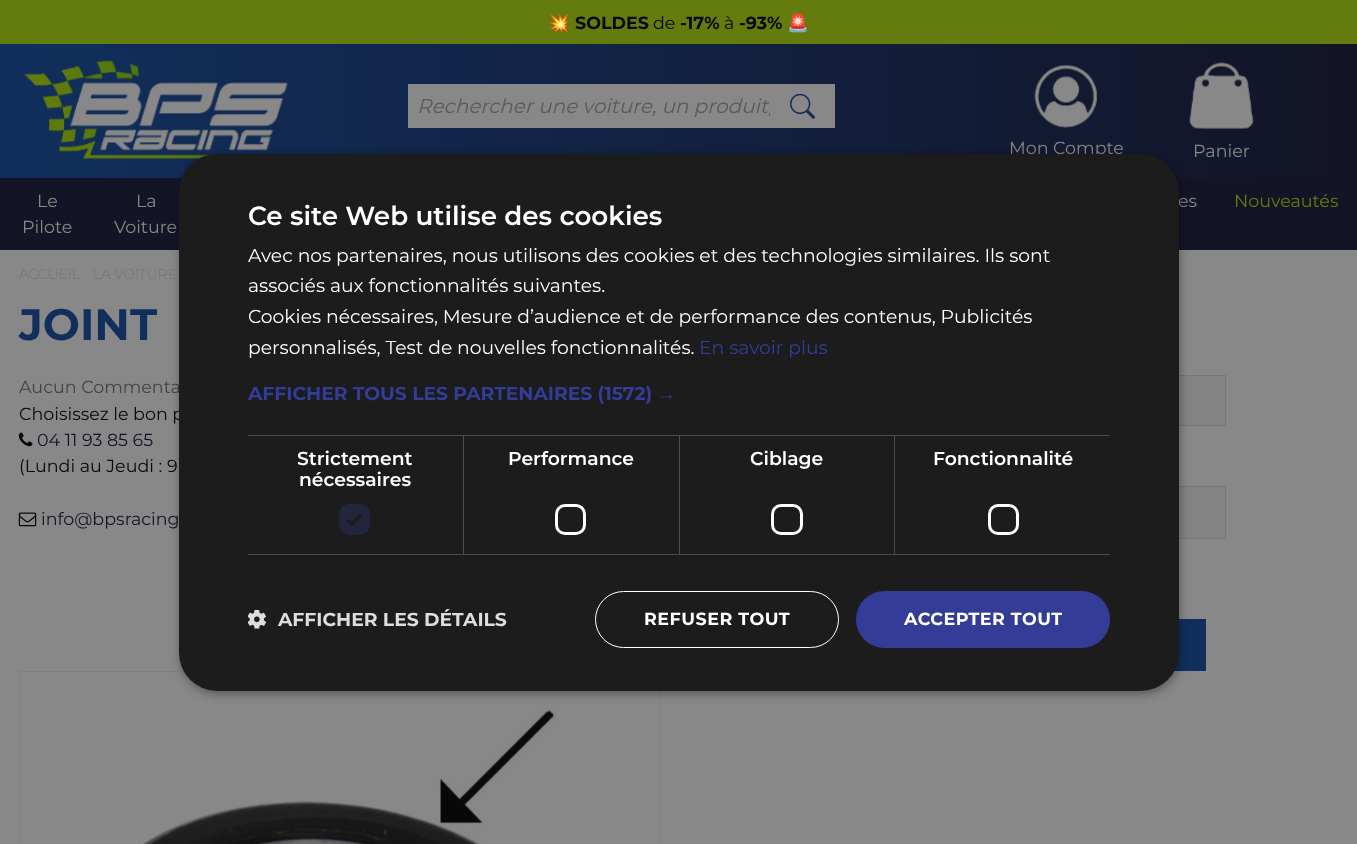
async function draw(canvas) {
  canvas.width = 1357;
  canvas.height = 844;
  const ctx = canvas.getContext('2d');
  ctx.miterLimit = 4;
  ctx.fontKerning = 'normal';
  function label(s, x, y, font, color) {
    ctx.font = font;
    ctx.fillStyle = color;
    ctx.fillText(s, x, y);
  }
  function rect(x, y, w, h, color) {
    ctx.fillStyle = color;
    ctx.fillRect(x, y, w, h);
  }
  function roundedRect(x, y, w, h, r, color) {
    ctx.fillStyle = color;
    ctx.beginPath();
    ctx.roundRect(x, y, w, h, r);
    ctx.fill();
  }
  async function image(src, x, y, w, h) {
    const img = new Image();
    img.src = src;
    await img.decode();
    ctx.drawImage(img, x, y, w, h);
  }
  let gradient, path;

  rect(0, 0, 1357, 844, '#888');
  rect(0, 0, 1357, 44, '#637c0d');
  label('💥', 548, 29, '17.5px Noto Color Emoji', '#090909');
  label('SOLDES', 575, 29, 'bold 17.5px Montserrat', '#090909');
  label('de', 653, 29, '17.5px Montserrat', '#090909');
  label('-17%', 680, 29, 'bold 17.5px Montserrat', '#090909');
  label('à', 724, 29, '17.5px Montserrat', '#090909');
  label('-93%', 739, 29, 'bold 17.5px Montserrat', '#090909');
  label('🚨', 787, 29, '17.5px Noto Color Emoji', '#090909');
  gradient = ctx.createLinearGradient(0, 147, 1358, 147);
  gradient.addColorStop(0, '#112f5d');
  gradient.addColorStop(1, '#131426');
  ctx.fillStyle = gradient;
  ctx.fillRect(0, 44, 1357, 134);
  await image('assets/img1.png', 24, 60, 265, 100);
  rect(408, 84, 362, 44, '#888');
  label('Rechercher une voiture, un produit,', 417, 113, 'italic 20px Montserrat', '#575a60');
  rect(770, 84, 65, 44, '#888');
  await image('assets/img2.png', 790, 94, 25, 25);
  await image('assets/img3.png', 1034, 65, 63, 63);
  label('Mon Compte', 1009, 154, '17.5px Montserrat', '#888');
  await image('assets/img4.png', 1189, 62, 65, 68);
  label('Panier', 1193, 157, '17.5px Montserrat', '#888');
  rect(0, 178, 1357, 72, '#131426');
  label('Le', 37, 207, '17.5px Montserrat', '#888');
  label('Pilote', 22, 233, '17.5px Montserrat', '#888');
  label('La', 136, 207, '17.5px Montserrat', '#888');
  label('Voiture', 114, 233, '17.5px Montserrat', '#888');
  label('es', 1178, 207, '17.5px Montserrat', '#888');
  label('Nouveautés', 1234, 207, '17.5px Montserrat', '#657d0c');
  label('ACCUEIL', 19, 279, '100 14px Montserrat', '#5d5d5d');
  label('LA VOITURE', 93, 279, '100 14px Montserrat', '#5d5d5d');
  label('JOINT', 19, 340, 'bold 44px Montserrat', '#112f5d');
  label('Aucun Commenta', 19, 393, '17.5px Montserrat', '#444');
  label('Choisissez le bon p', 19, 420, '17.5px Montserrat', '#090909');
  await image('assets/img5.png', 18, 432, 15, 15);
  label('04 11 93 85 65', 37, 446, '17.5px Montserrat', '#131426');
  label('(Lundi au Jeudi : 9', 19, 472, '17.5px Montserrat', '#090909');
  await image('assets/img6.png', 18, 512, 19, 15);
  label('info@bpsracing', 41, 525, '17.5px Montserrat', '#131426');
  rect(1179, 376, 46, 49, '#838383');
  ctx.strokeStyle = '#777';
  ctx.strokeRect(698.5, 375.5, 527, 50);
  rect(1179, 487, 46, 51, '#838383');
  ctx.strokeRect(698.5, 486.5, 527, 52);
  rect(1174, 619, 32, 52, '#112f5d');
  ctx.strokeStyle = '#808080';
  ctx.strokeRect(19.5, 671.5, 640, 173);
  await image('assets/img7.png', 142, 709, 414, 135);
  ctx.fillStyle = '#00000059';
  ctx.filter = 'blur(5px)';
  ctx.beginPath();
  ctx.roundRect(180, 156, 1000, 538, 38);
  ctx.fill();
  ctx.filter = 'none';
  roundedRect(179, 154, 1000, 537, 38, '#1c1c1c');
  label('Ce site Web utilise des cookies', 248, 225, '600 26.25px Montserrat', '#fff');
  label('Avec nos partenaires, nous utilisons des cookies et des technologies similaires. Ils sont', 248, 262, '18.75px Montserrat', '#fff');
  label('associés aux fonctionnalités suivantes.', 248, 292, '18.75px Montserrat', '#fff');
  label('Cookies nécessaires, Mesure d’audience et de performance des contenus, Publicités', 248, 323, '18.75px Montserrat', '#fff');
  label('personnalisés, Test de nouvelles fonctionnalités.', 248, 354, '18.75px Montserrat', '#fff');
  label('En savoir plus', 699, 354, '18.75px Montserrat', '#333d98');
  label('AFFICHER TOUS LES PARTENAIRES (1572)', 248, 400, 'bold 18.75px Montserrat', '#333d98');
  label('→', 657, 400, 'bold 18.75px Liberation Serif', '#333d98');
  rect(248, 435, 862, 1, '#4d4d4d');
  rect(463, 435, 1, 120, '#4d4d4d');
  rect(248, 554, 216, 1, '#4d4d4d');
  label('Strictement', 297, 465, '600 18.75px Montserrat', '#fff');
  label('nécessaires', 299, 486, '600 18.75px Montserrat', '#fff');
  roundedRect(339, 504, 31, 31, 10, '#22253c');
  path = new Path2D('M347.5 520L351.5 524L361.5 514.5');
  ctx.strokeStyle = '#1c1c1c';
  ctx.lineWidth = 3.3;
  ctx.stroke(path);
  rect(679, 435, 1, 120, '#4d4d4d');
  rect(464, 554, 216, 1, '#4d4d4d');
  label('Performance', 508, 465, '600 18.75px Montserrat', '#fff');
  ctx.beginPath();
  ctx.roundRect(556.5, 505.5, 28, 28, 8.5);
  ctx.strokeStyle = '#fff';
  ctx.lineWidth = 3;
  ctx.stroke();
  rect(894, 435, 1, 120, '#4d4d4d');
  rect(680, 554, 430, 1, '#4d4d4d');
  label('Ciblage', 750, 465, '600 18.75px Montserrat', '#fff');
  ctx.beginPath();
  ctx.roundRect(772.5, 505.5, 29, 28, 8.5);
  ctx.stroke();
  label('Fonctionnalité', 933, 465, '600 18.75px Montserrat', '#fff');
  ctx.beginPath();
  ctx.roundRect(989.5, 505.5, 28, 28, 8.5);
  ctx.stroke();
  await image('assets/img8.png', 248, 610, 18, 19);
  label('AFFICHER LES DÉTAILS', 278, 626, 'bold 18.75px Montserrat', '#ddd');
  ctx.beginPath();
  ctx.roundRect(595.5, 591.5, 243, 56, 28);
  ctx.lineWidth = 1;
  ctx.stroke();
  ctx.letterSpacing = '0.5px';
  label('REFUSER TOUT', 644, 625, 'bold 17.5px Montserrat', '#fff');
  roundedRect(856, 591, 254, 57, 28.5, '#333d98');
  label('ACCEPTER TOUT', 904, 625, 'bold 17.5px Montserrat', '#fff');
}

draw(document.querySelector('canvas'));
